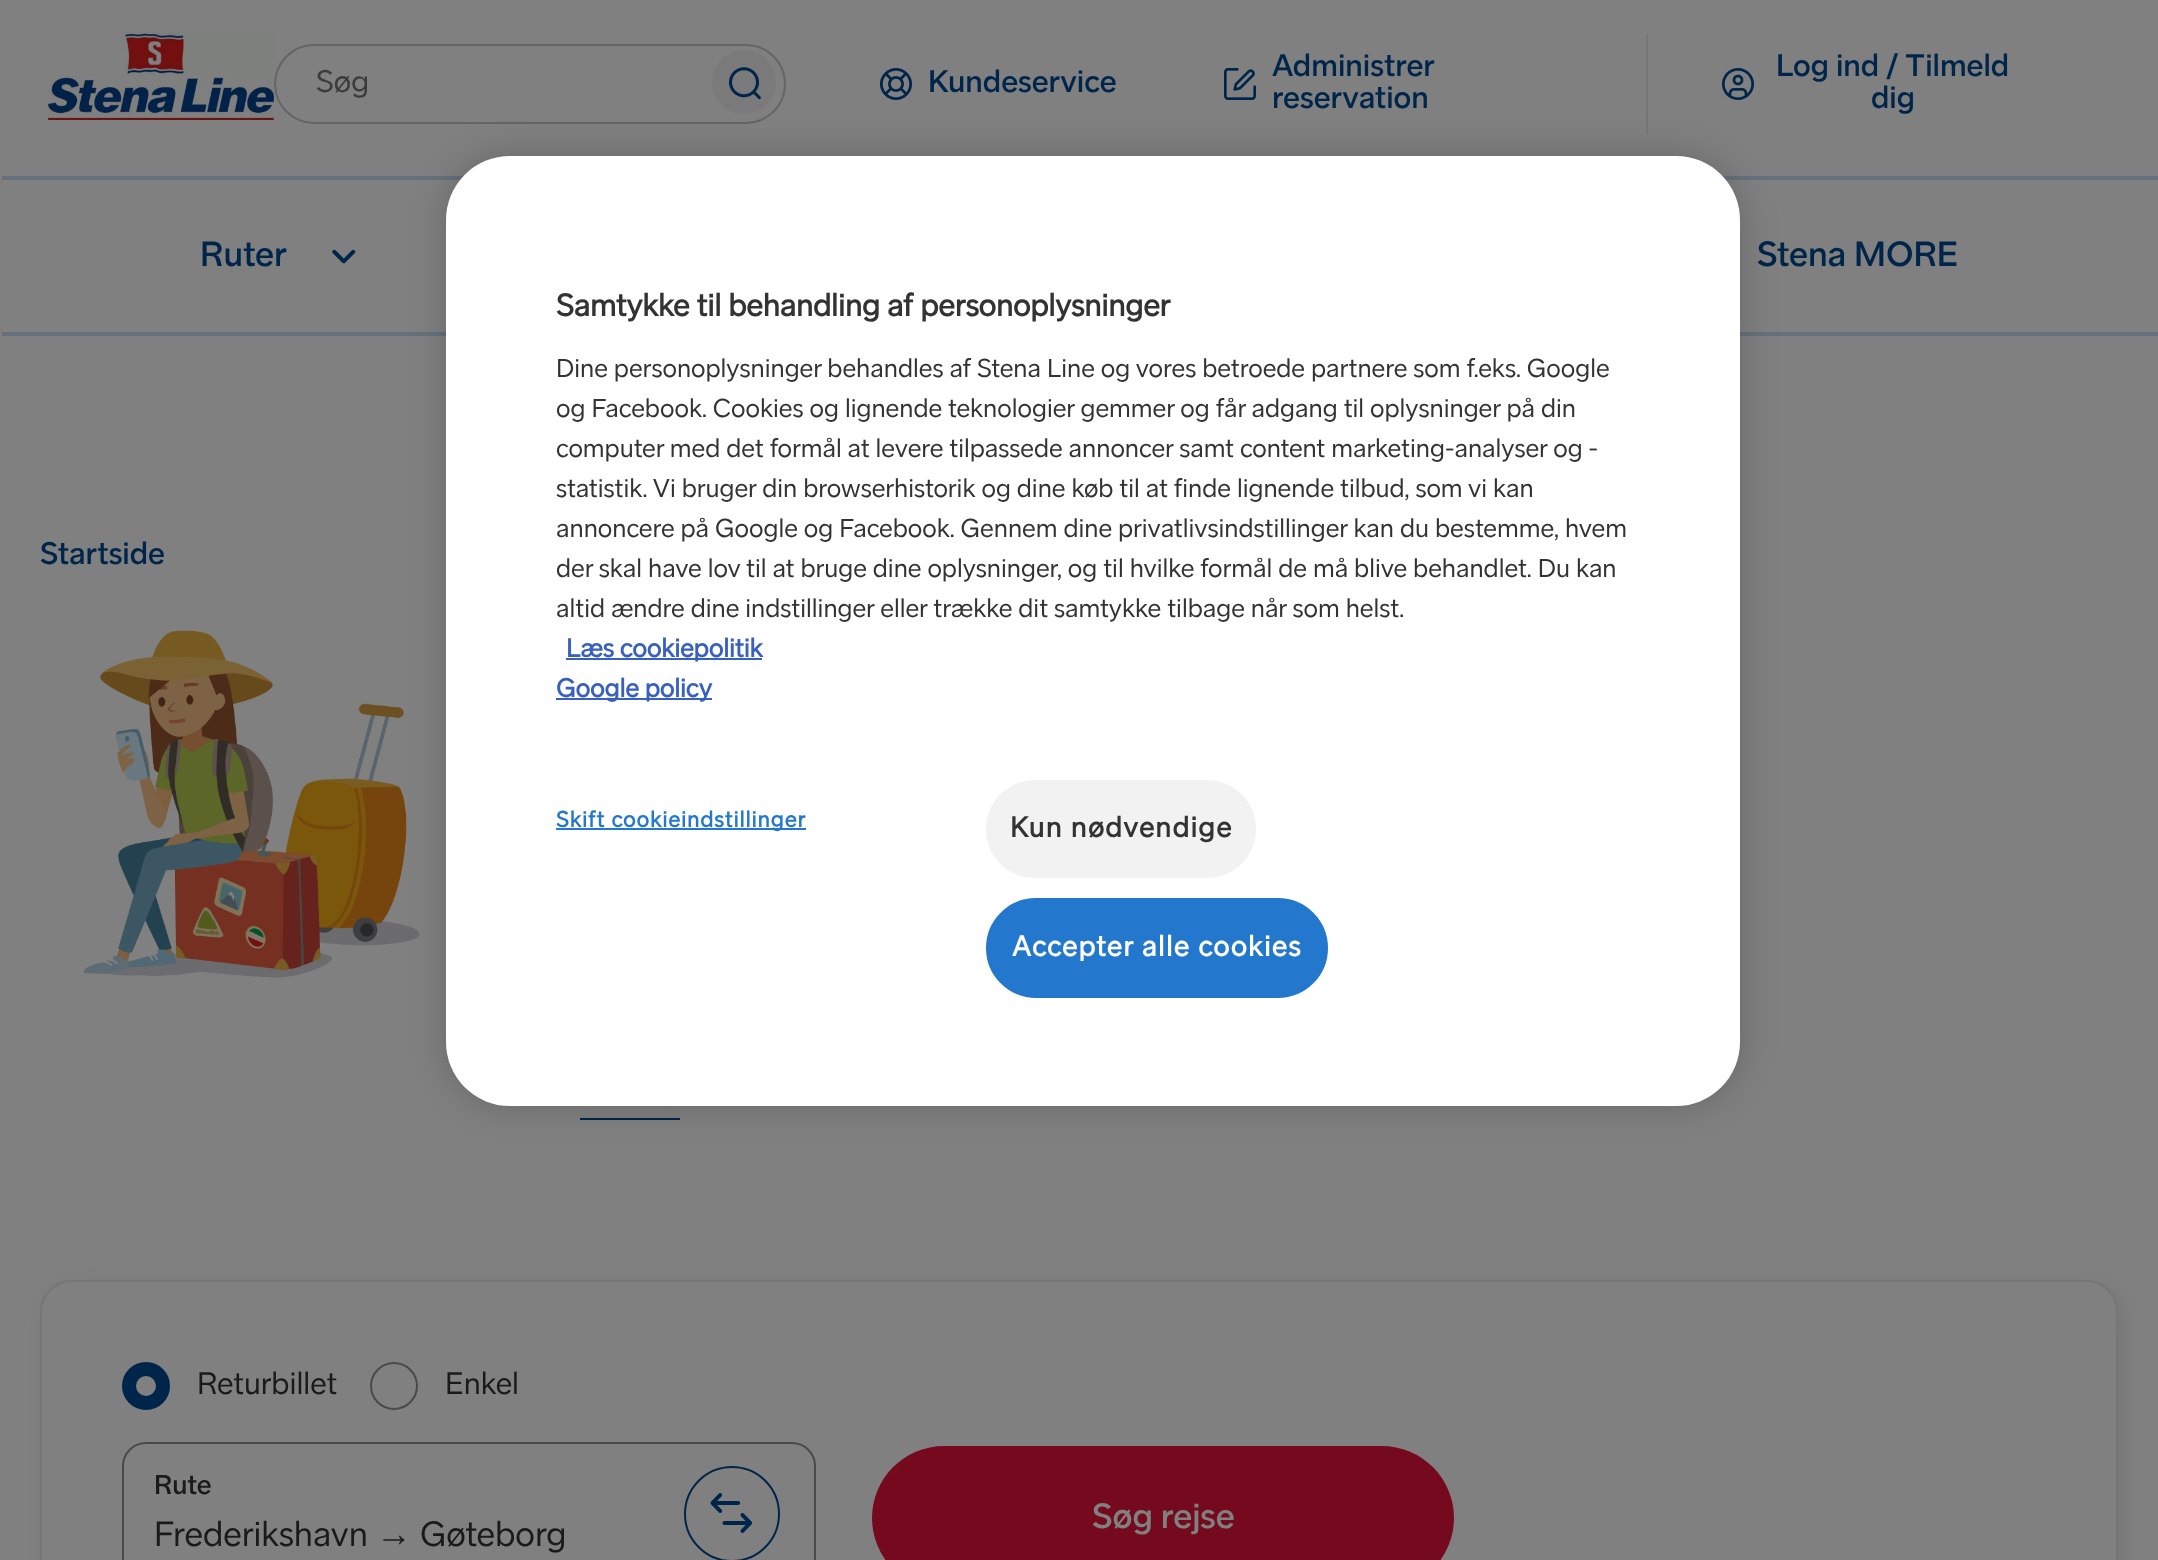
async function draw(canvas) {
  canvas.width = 2158;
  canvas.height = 1560;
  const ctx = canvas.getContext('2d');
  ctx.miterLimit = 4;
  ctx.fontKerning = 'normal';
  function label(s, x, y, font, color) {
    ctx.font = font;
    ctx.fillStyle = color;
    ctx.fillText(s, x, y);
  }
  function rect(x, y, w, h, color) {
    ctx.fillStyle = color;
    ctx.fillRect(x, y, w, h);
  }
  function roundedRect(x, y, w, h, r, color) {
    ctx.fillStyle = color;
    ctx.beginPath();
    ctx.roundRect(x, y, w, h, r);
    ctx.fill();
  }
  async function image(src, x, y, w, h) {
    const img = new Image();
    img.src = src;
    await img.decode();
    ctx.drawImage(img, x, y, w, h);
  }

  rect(0, 0, 2158, 1560, '#808080');
  await image('assets/img1.png', 48, 32, 226, 88);
  ctx.beginPath();
  ctx.roundRect(275, 45, 510, 78, 39);
  ctx.strokeStyle = '#656565';
  ctx.lineWidth = 2;
  ctx.stroke();
  label('Søg', 316, 92, '32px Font', '#3b3b3b');
  ctx.fillStyle = '#7a7a7a';
  ctx.beginPath();
  ctx.arc(744, 82, 32, 0, 2 * Math.PI);
  ctx.fill();
  await image('assets/img2.png', 729, 67, 32, 33);
  await image('assets/img3.png', 880, 68, 32, 32);
  label('Kundeservice', 928, 92, '500 32px Font', '#00254a');
  await image('assets/img4.png', 1224, 68, 32, 32);
  label('Administrer', 1272, 76, '500 32px Font', '#00254a');
  label('reservation', 1272, 108, '500 32px Font', '#00254a');
  rect(1646, 34, 2, 100, '#767676');
  await image('assets/img5.png', 1722, 68, 32, 32);
  label('Log ind / Tilmeld', 1776, 76, '500 32px Font', '#00254a');
  label('dig', 1871, 108, '500 32px Font', '#00254a');
  rect(2, 176, 2156, 4, '#65717e');
  rect(2, 332, 2156, 4, '#65717e');
  label('Ruter', 200, 266, '500 36px Font', '#00254a');
  await image('assets/img6.png', 332, 249, 24, 15);
  label('Stena MORE', 1757, 266, '500 36px Font', '#00254a');
  label('Startside', 40, 564, '500 32px Font', '#00254a');
  await image('assets/img7.png', 83, 630, 337, 348);
  rect(580, 1118, 100, 2, '#00254a');
  ctx.fillStyle = '#767676';
  ctx.filter = 'blur(10px)';
  ctx.beginPath();
  ctx.roundRect(46, 1286, 2078, 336, 32);
  ctx.fill();
  ctx.filter = 'none';
  ctx.fillStyle = '#808080';
  ctx.beginPath();
  ctx.roundRect(41, 1281, 2076, 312, 31);
  ctx.fill();
  ctx.strokeStyle = '#767676';
  ctx.stroke();
  ctx.beginPath();
  ctx.arc(146, 1386, 17, 0, 2 * Math.PI);
  ctx.strokeStyle = '#00254a';
  ctx.lineWidth = 14;
  ctx.stroke();
  label('Returbillet', 197, 1394, '32px Font', '#1a1a1a');
  ctx.beginPath();
  ctx.arc(394, 1386, 23, 0, 2 * Math.PI);
  ctx.strokeStyle = '#4a4a4a';
  ctx.lineWidth = 2;
  ctx.stroke();
  label('Enkel', 445, 1394, '32px Font', '#1a1a1a');
  ctx.beginPath();
  ctx.roundRect(123, 1443, 692, 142, 23);
  ctx.stroke();
  label('Rute', 154, 1494, '500 28px Font', '#1a1a1a');
  label('Frederikshavn', 154, 1546, '36px Font', '#1a1a1a');
  label('→', 376, 1546, '36px Liberation Sans', '#1a1a1a');
  label('Gøteborg', 420, 1546, '36px Font', '#1a1a1a');
  ctx.beginPath();
  ctx.arc(732, 1514, 47, 0, 2 * Math.PI);
  ctx.strokeStyle = '#00254a';
  ctx.stroke();
  await image('assets/img8.png', 710, 1493, 43, 40);
  roundedRect(872, 1446, 582, 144, 72, '#750a1f');
  label('Søg rejse', 1092, 1528, '500 36px Font', '#808080');
  ctx.fillStyle = '#00000033';
  ctx.filter = 'blur(18px)';
  ctx.beginPath();
  ctx.roundRect(446, 156, 1294, 950, 64);
  ctx.fill();
  ctx.filter = 'none';
  roundedRect(446, 156, 1294, 950, 64, '#fff');
  label('Samtykke til behandling af personoplysninger', 556, 316, 'bold 32px Font', '#333');
  label('Dine personoplysninger behandles af Stena Line og vores betroede partnere som f.eks. Google', 556, 377, '26.65px Font', '#333');
  label('og Facebook. Cookies og lignende teknologier gemmer og får adgang til oplysninger på din', 556, 417, '26.65px Font', '#333');
  label('computer med det formål at levere tilpassede annoncer samt content marketing-analyser og -', 556, 457, '26.65px Font', '#333');
  label('statistik. Vi bruger din browserhistorik og dine køb til at finde lignende tilbud, som vi kan', 556, 497, '26.65px Font', '#333');
  label('annoncere på Google og Facebook. Gennem dine privatlivsindstillinger kan du bestemme, hvem', 556, 537, '26.65px Font', '#333');
  label('der skal have lov til at bruge dine oplysninger, og til hvilke formål de må blive behandlet. Du kan', 556, 577, '26.65px Font', '#333');
  label('altid ændre dine indstillinger eller trække dit samtykke tilbage når som helst.', 556, 617, '26.65px Font', '#333');
  rect(566, 658, 196, 2, '#3860be');
  label('Læs cookiepolitik', 566, 657, 'bold 26.65px Font', '#3860be');
  rect(556, 698, 156, 2, '#3860be');
  label('Google policy', 556, 697, 'bold 26.65px Font', '#3860be');
  rect(556, 828, 250, 2, '#2378cd');
  ctx.letterSpacing = '1.1px';
  label('Skift cookieindstillinger', 556, 827, 'bold 22.75px Font', '#2378cd');
  roundedRect(986, 780, 270, 98, 49, '#f2f2f2');
  ctx.letterSpacing = '1.5px';
  label('Kun nødvendige', 1010, 837, 'bold 29.25px Font', '#333');
  ctx.fillStyle = '#2378cd';
  ctx.beginPath();
  ctx.roundRect(987, 899, 340, 98, 49);
  ctx.fill();
  ctx.strokeStyle = '#2378cd';
  ctx.stroke();
  label('Accepter alle cookies', 1012, 956, 'bold 29.25px Font', '#fff');
}

draw(document.querySelector('canvas'));
